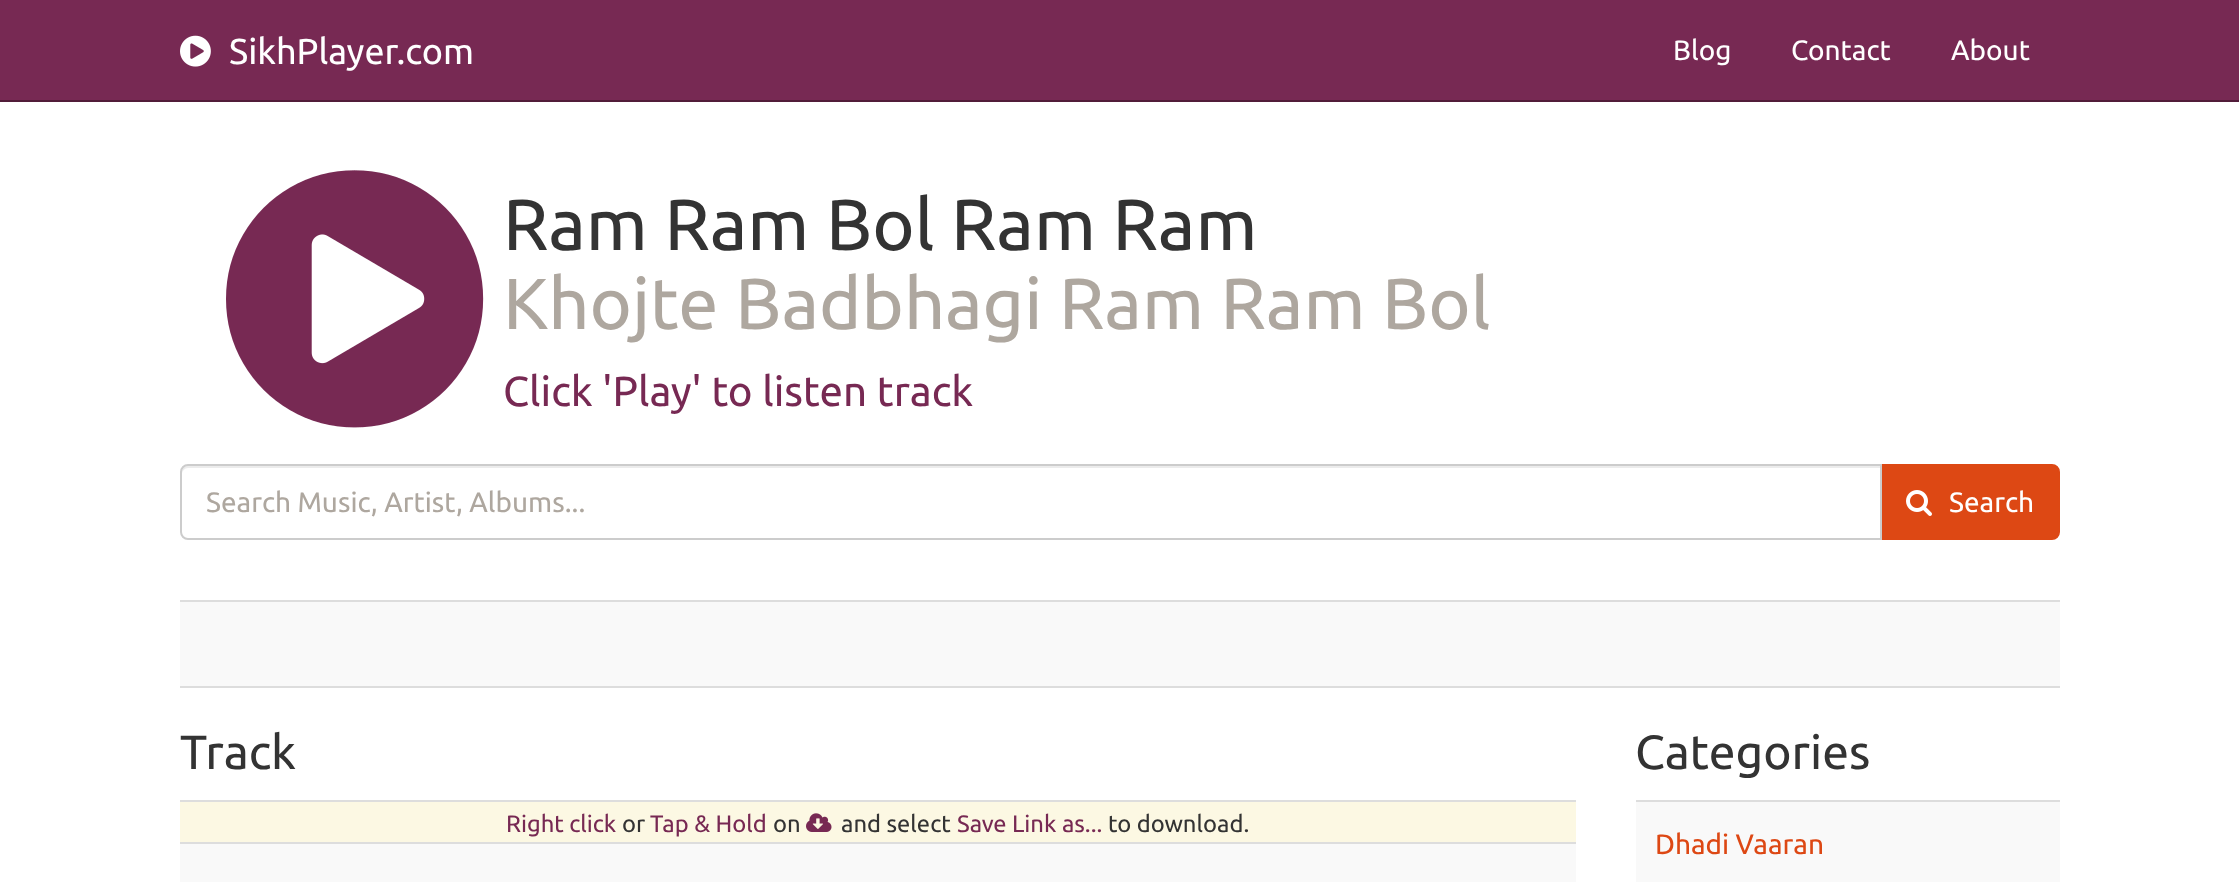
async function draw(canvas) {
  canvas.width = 2239;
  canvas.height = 882;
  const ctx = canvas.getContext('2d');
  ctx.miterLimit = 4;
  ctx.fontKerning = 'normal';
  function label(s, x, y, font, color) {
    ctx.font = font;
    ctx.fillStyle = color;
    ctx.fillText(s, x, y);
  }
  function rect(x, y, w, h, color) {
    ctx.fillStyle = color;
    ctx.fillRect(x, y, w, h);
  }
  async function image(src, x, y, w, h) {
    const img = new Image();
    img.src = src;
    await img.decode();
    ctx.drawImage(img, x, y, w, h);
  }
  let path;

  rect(0, 0, 2239, 882, '#fff');
  rect(0, 0, 2239, 100, '#772953');
  rect(0, 100, 2239, 2, '#511c39');
  await image('assets/img1.png', 180, 35, 31, 32);
  label('SikhPlayer.com', 229, 64, '36px Ubuntu', '#fff');
  label('Blog', 1673, 60, '28px Ubuntu', '#fff');
  label('Contact', 1791, 60, '28px Ubuntu', '#fff');
  label('About', 1951, 60, '28px Ubuntu', '#fff');
  await image('assets/img2.png', 226, 170, 258, 258);
  label('Ram Ram Bol Ram Ram', 503, 250, '72px Ubuntu', '#333');
  label('Khojte Badbhagi Ram Ram Bol', 503, 329, '72px Ubuntu', '#aea79f');
  label('Click \'Play\' to listen track', 503, 406, '42px Ubuntu', '#772953');
  ctx.fillStyle = '#dd4814';
  ctx.beginPath();
  ctx.roundRect(1881, 465, 178, 74, [0, 7, 7, 0]);
  ctx.fill();
  ctx.strokeStyle = '#dd4814';
  ctx.lineWidth = 2;
  ctx.stroke();
  ctx.fillStyle = '#fff';
  ctx.beginPath();
  ctx.roundRect(180, 464, 1702, 76, [8, 0, 0, 8]);
  ctx.fill();
  ctx.fillStyle = '#ececec';
  path = new Path2D('M188 468H1880V466H188C183 466 182 470 182 474C182 471 185 468 188 468Z');
  ctx.fill(path);
  ctx.beginPath();
  ctx.roundRect(181, 465, 1700, 74, [7, 0, 0, 7]);
  ctx.strokeStyle = '#ccc';
  ctx.stroke();
  label('Search Music, Artist, Albums...', 206, 512, '28px Ubuntu', '#aea79f');
  await image('assets/img3.png', 1906, 490, 26, 26);
  label('Search', 1949, 512, '28px Ubuntu', '#fff');
  rect(180, 602, 1880, 84, '#f9f9f9');
  rect(180, 600, 1880, 2, '#ddd');
  rect(180, 686, 1880, 2, '#ddd');
  label('Track', 180, 769, '48px Ubuntu', '#333');
  rect(180, 802, 1396, 40, '#fcf8e3');
  rect(180, 800, 1396, 2, '#ddd');
  label('Right click', 506, 832, '23.75px Ubuntu', '#772953');
  label('or', 622, 832, '23.75px Ubuntu', '#333');
  label('Tap & Hold', 650, 832, '23.75px Ubuntu', '#772953');
  label('on', 773, 832, '23.75px Ubuntu', '#333');
  await image('assets/img4.png', 806, 813, 26, 19);
  label('and select', 841, 832, '23.75px Ubuntu', '#333');
  label('Save Link as...', 957, 832, '23.75px Ubuntu', '#772953');
  label('to download.', 1108, 832, '23.75px Ubuntu', '#333');
  rect(180, 844, 1396, 38, '#f9f9f9');
  rect(180, 842, 1396, 2, '#ddd');
  label('Categories', 1635, 769, '48px Ubuntu', '#333');
  rect(1636, 802, 424, 80, '#f9f9f9');
  rect(1636, 800, 424, 2, '#ddd');
  label('Dhadi Vaaran', 1655, 854, '28px Ubuntu', '#dd4814');
}

draw(document.querySelector('canvas'));
